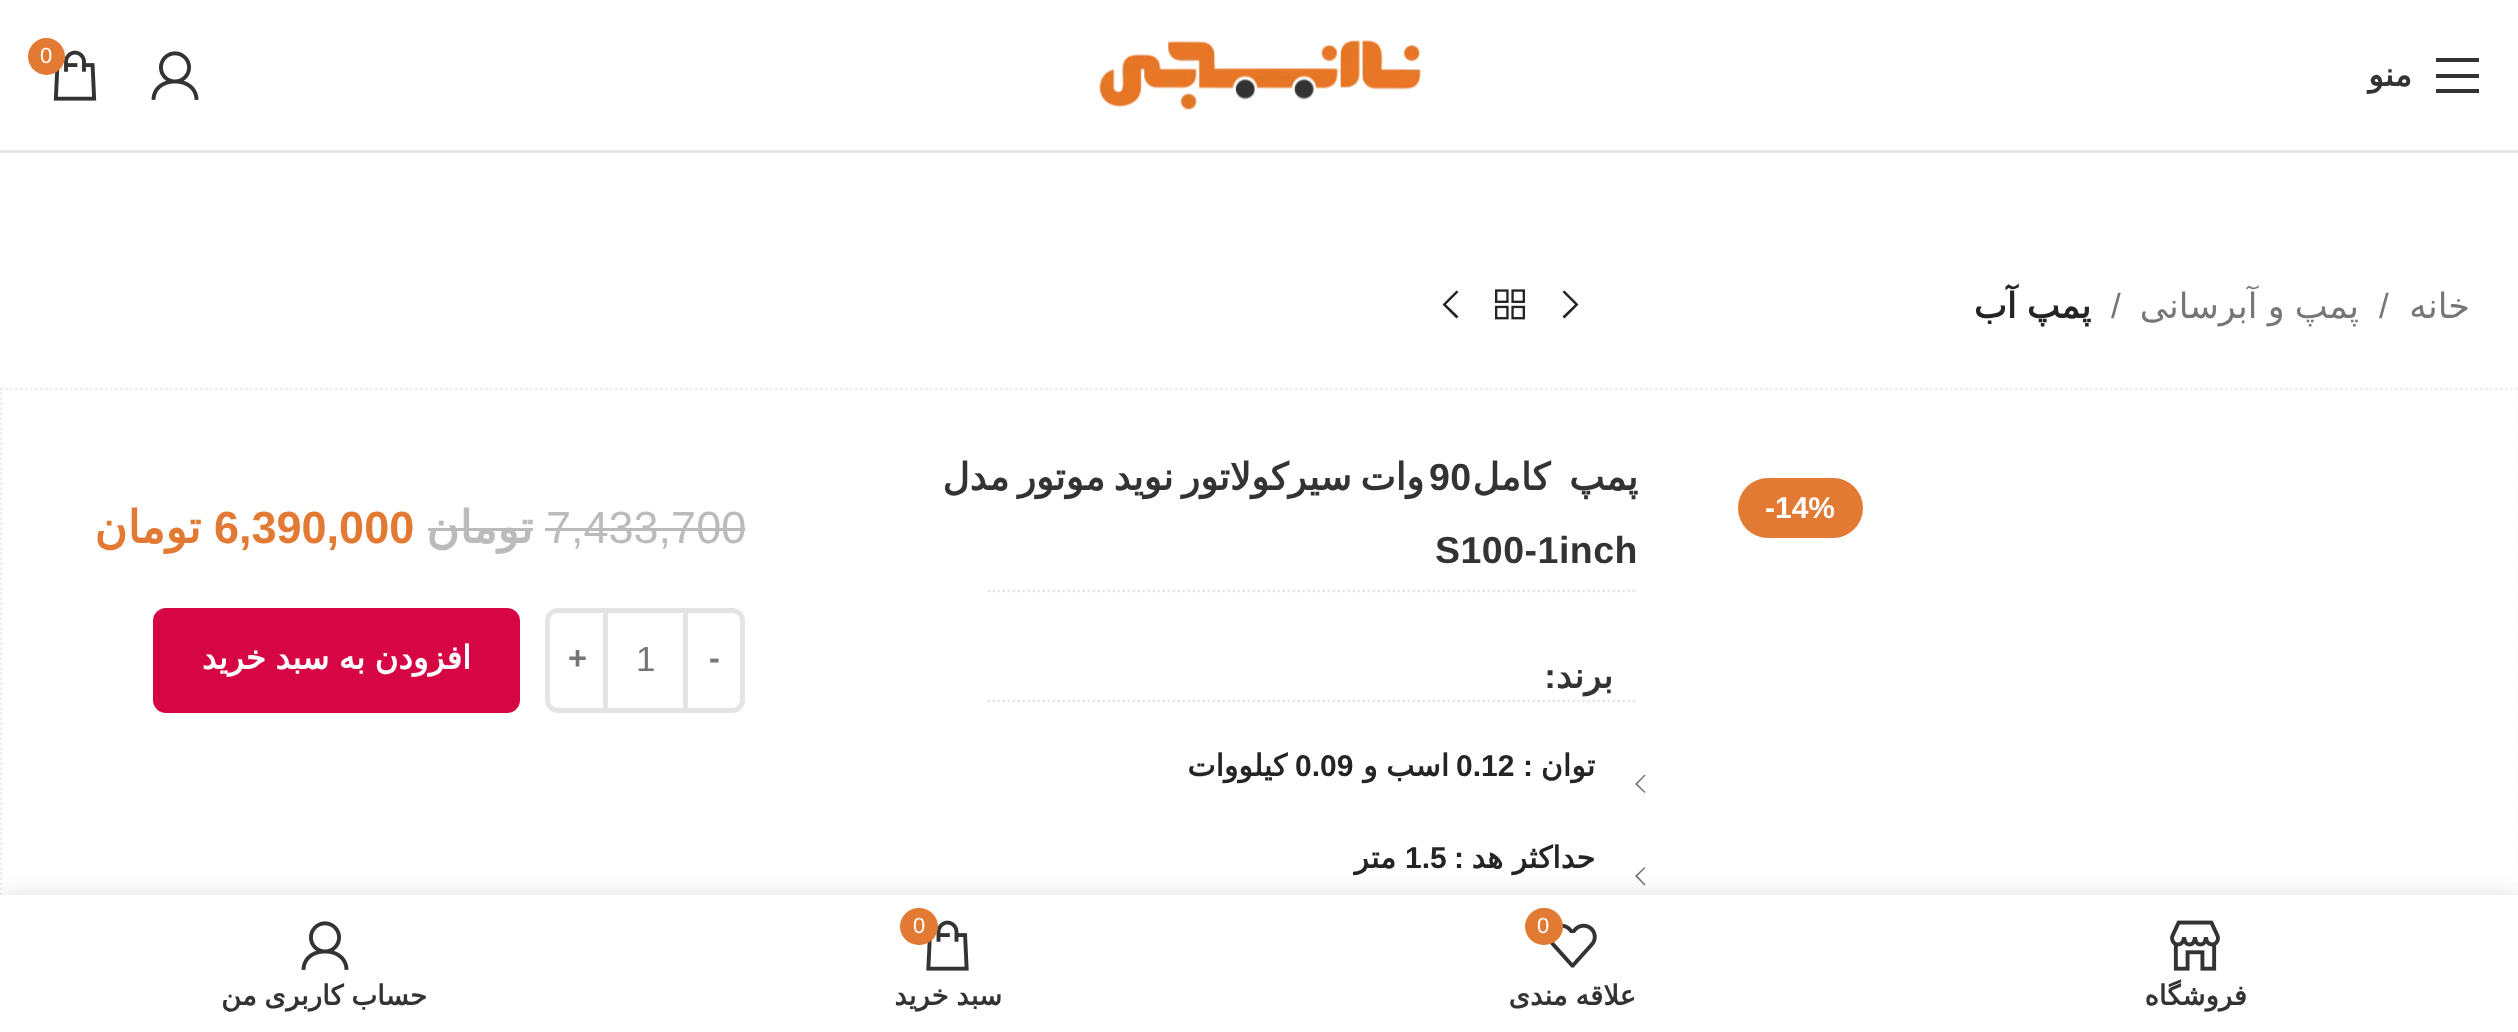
async function draw(canvas) {
  canvas.width = 2518;
  canvas.height = 1032;
  const ctx = canvas.getContext('2d');
  ctx.miterLimit = 4;
  ctx.fontKerning = 'normal';
  function label(s, x, y, font, color) {
    ctx.font = font;
    ctx.fillStyle = color;
    ctx.fillText(s, x, y);
  }
  function rect(x, y, w, h, color) {
    ctx.fillStyle = color;
    ctx.fillRect(x, y, w, h);
  }
  function roundedRect(x, y, w, h, r, color) {
    ctx.fillStyle = color;
    ctx.beginPath();
    ctx.roundRect(x, y, w, h, r);
    ctx.fill();
  }
  async function image(src, x, y, w, h) {
    const img = new Image();
    img.src = src;
    await img.decode();
    ctx.drawImage(img, x, y, w, h);
  }
  let path;

  rect(0, 0, 2518, 1032, '#fff');
  rect(0, 150, 2518, 3, '#e6e6e6');
  await image('assets/img1.png', 1099, 39, 322, 72);
  await image('assets/img2.png', 151, 51, 48, 49);
  await image('assets/img3.png', 53, 50, 44, 51);
  ctx.fillStyle = '#e27a34';
  ctx.beginPath();
  ctx.arc(46.5, 56.5, 18.5, 0, 2 * Math.PI);
  ctx.fill();
  label('0', 40, 63, '22px Liberation Sans', '#fff');
  ctx.fillStyle = '#333';
  path = new Path2D('M2436 62H2479V58H2436ZM2436 78H2479V74H2436ZM2436 93H2479V89H2436Z');
  ctx.fill(path);
  ctx.direction = 'rtl';
  label('منو', 2412, 86, 'bold 32.5px DejaVu Sans', '#333');
  label('خانه', 2470, 318, '35px DejaVu Sans', '#767676');
  ctx.direction = 'ltr';
  label('/', 2379, 318, '35px Liberation Sans', '#767676');
  ctx.wordSpacing = '-1px';
  ctx.direction = 'rtl';
  label('پمپ و آبرسانی', 2359, 318, '35px DejaVu Sans', '#767676');
  ctx.wordSpacing = '0px';
  ctx.direction = 'ltr';
  label('/', 2111, 318, '35px Liberation Sans', '#767676');
  ctx.wordSpacing = '-1px';
  ctx.direction = 'rtl';
  label('پمپ آب', 2091, 318, 'bold 35px DejaVu Sans', '#242424');
  path = new Path2D('M1562.5 292L1575 304.5L1562.5 316.5L1564.5 318.5L1578.5 304.5L1564.5 290.5Z');
  ctx.fill(path);
  await image('assets/img4.png', 1495, 289, 30, 31);
  path = new Path2D('M1458.5 292L1456.5 290.5L1442.5 304.5L1456.5 318.5L1458.5 316.5L1446 304.5Z');
  ctx.fill(path);
  path = new Path2D('M0 389H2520');
  ctx.strokeStyle = '#efecec';
  ctx.lineWidth = 2.5;
  ctx.setLineDash([2.5, 2.5]);
  ctx.stroke(path);
  path = new Path2D('M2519 387.5V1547.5');
  ctx.strokeStyle = '#e9e5e5bf';
  ctx.stroke(path);
  path = new Path2D('M1 387.5V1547.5');
  ctx.stroke(path);
  roundedRect(1738, 478, 125, 60, 30, '#e27a34');
  ctx.wordSpacing = '0px';
  ctx.direction = 'ltr';
  label('-14%', 1765, 518, 'bold 30px Liberation Sans', '#fff');
  ctx.letterSpacing = '0.5px';
  ctx.direction = 'rtl';
  label('پمپ', 1638, 490, 'bold 37.5px DejaVu Sans', '#333');
  label('کامل', 1550, 490, 'bold 37.5px DejaVu Sans', '#333');
  ctx.wordSpacing = '-4px';
  label('وات سیرکولاتور نوید موتور مدل', 1424, 490, 'bold 37.5px DejaVu Sans', '#333');
  ctx.wordSpacing = '0px';
  ctx.direction = 'ltr';
  label('90', 1429, 490, 'bold 37.5px Liberation Sans', '#333');
  label('S100-1inch', 1435, 563, 'bold 37.5px Liberation Sans', '#333');
  path = new Path2D('M987.5 591H1637.5');
  ctx.strokeStyle = '#e9e5e5';
  ctx.stroke(path);
  ctx.letterSpacing = '0px';
  ctx.direction = 'rtl';
  label('برند', 1613, 688, 'bold 35px DejaVu Sans', '#333');
  label(':', 1556, 688, 'bold 35px Liberation Sans', '#333');
  path = new Path2D('M987.5 701H1637.5');
  ctx.stroke(path);
  ctx.fillStyle = '#777';
  path = new Path2D('M1645.5 775.5L1644.5 774.5L1635 784L1644.5 793L1645.5 792L1637.5 784Z');
  ctx.fill(path);
  label('توان', 1595, 776, 'bold 30px DejaVu Sans', '#242424');
  label(':', 1533, 776, 'bold 30px Liberation Sans', '#242424');
  ctx.direction = 'ltr';
  label('0.12', 1456, 776, 'bold 30px Liberation Sans', '#242424');
  ctx.wordSpacing = '-1px';
  ctx.direction = 'rtl';
  label('اسب و', 1449, 776, 'bold 30px DejaVu Sans', '#242424');
  ctx.wordSpacing = '0px';
  ctx.direction = 'ltr';
  label('0.09', 1295, 776, 'bold 30px Liberation Sans', '#242424');
  ctx.direction = 'rtl';
  label('کیلووات', 1287, 776, 'bold 30px DejaVu Sans', '#242424');
  ctx.fillStyle = '#777';
  path = new Path2D('M1645.5 868L1644.5 867L1635 876L1644.5 885.5L1645.5 884.5L1637.5 876Z');
  ctx.fill(path);
  label('حداکثر هد', 1595, 868, 'bold 30px DejaVu Sans', '#242424');
  label(':', 1464, 868, 'bold 30px Liberation Sans', '#242424');
  ctx.direction = 'ltr';
  label('1.5', 1405, 868, 'bold 30px Liberation Sans', '#242424');
  ctx.direction = 'rtl';
  label('متر', 1396, 868, 'bold 30px DejaVu Sans', '#242424');
  ctx.direction = 'ltr';
  label('7,433,700', 546, 543, '45px Liberation Sans', '#bbb');
  rect(545, 528, 200, 3, '#bbb');
  ctx.direction = 'rtl';
  label('تومان', 533, 543, 'bold 45px DejaVu Sans', '#bbb');
  rect(428, 528, 105, 3, '#bbb');
  ctx.direction = 'ltr';
  label('6,390,000', 214, 543, 'bold 45px Liberation Sans', '#e27a34');
  ctx.direction = 'rtl';
  label('تومان', 201, 543, 'bold 45px DejaVu Sans', '#e27a34');
  ctx.beginPath();
  ctx.roundRect(685.5, 610.5, 57, 100, [0, 10.5, 10.5, 0]);
  ctx.strokeStyle = '#e4e4e4';
  ctx.lineWidth = 5;
  ctx.setLineDash([]);
  ctx.stroke();
  ctx.direction = 'ltr';
  label('-', 709, 669, 'bold 32.5px Liberation Sans', '#767676');
  rect(608, 608, 75, 5, '#e4e4e4');
  rect(608, 708, 75, 5, '#e4e4e4');
  label('1', 636, 671, '35px Liberation Sans', '#767676');
  ctx.beginPath();
  ctx.roundRect(547.5, 610.5, 58, 100, [10.5, 0, 0, 10.5]);
  ctx.stroke();
  label('+', 568, 669, 'bold 32.5px Liberation Sans', '#767676');
  roundedRect(153, 608, 367, 105, 13, '#d60644');
  ctx.wordSpacing = '-1px';
  ctx.direction = 'rtl';
  label('افزودن به سبد خرید', 471, 669, 'bold 32.5px DejaVu Sans', '#fff');
  ctx.fillStyle = '#0000001f';
  ctx.filter = 'blur(11px)';
  ctx.beginPath();
  ctx.rect(0, 895, 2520, 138);
  ctx.fill();
  ctx.filter = 'none';
  rect(0, 895, 2518, 137, '#fff');
  await image('assets/img5.png', 2170, 920, 50, 51);
  ctx.wordSpacing = '0px';
  label('فروشگاه', 2247, 1005, 'bold 27.5px DejaVu Sans', '#333');
  await image('assets/img6.png', 1550, 923, 47, 45);
  roundedRect(1525, 908, 38, 37, 18.5, '#e27a34');
  ctx.direction = 'ltr';
  label('0', 1537, 933, '22px Liberation Sans', '#fff');
  ctx.wordSpacing = '-1px';
  ctx.direction = 'rtl';
  label('علاقه مندی', 1636, 1005, 'bold 27.5px DejaVu Sans', '#333');
  await image('assets/img7.png', 926, 920, 43, 51);
  roundedRect(900, 908, 38, 37, 18.5, '#e27a34');
  ctx.wordSpacing = '0px';
  ctx.direction = 'ltr';
  label('0', 913, 933, '22px Liberation Sans', '#fff');
  ctx.wordSpacing = '-1px';
  ctx.direction = 'rtl';
  label('سبد خرید', 1002, 1005, 'bold 27.5px DejaVu Sans', '#333');
  await image('assets/img2.png', 301, 921, 48, 49);
  label('حساب کاربری من', 427, 1005, 'bold 27.5px DejaVu Sans', '#333');
}

draw(document.querySelector('canvas'));
